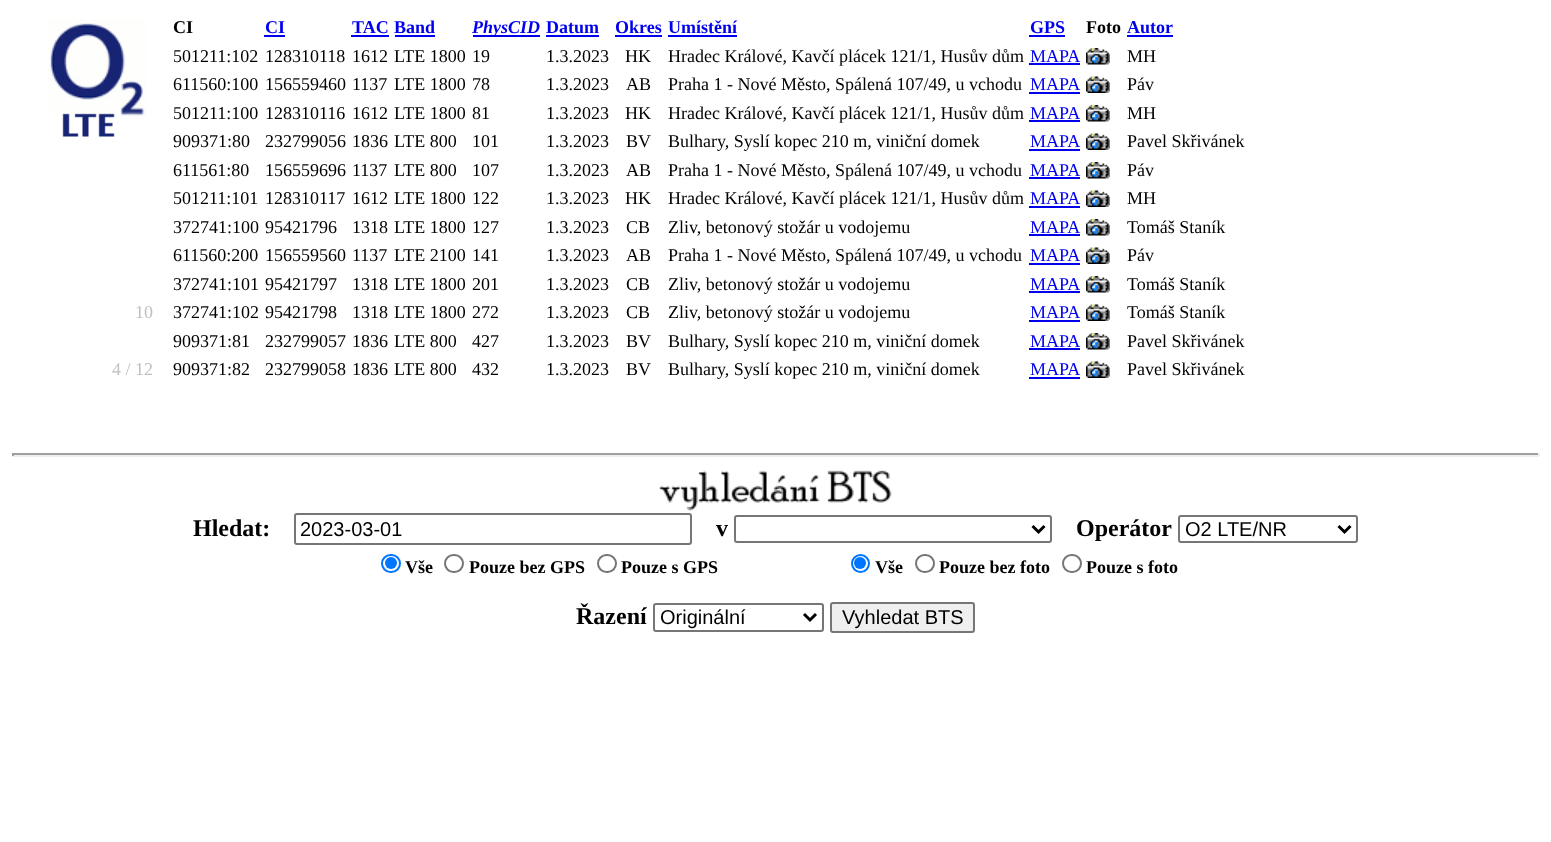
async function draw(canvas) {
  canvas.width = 1551;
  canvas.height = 842;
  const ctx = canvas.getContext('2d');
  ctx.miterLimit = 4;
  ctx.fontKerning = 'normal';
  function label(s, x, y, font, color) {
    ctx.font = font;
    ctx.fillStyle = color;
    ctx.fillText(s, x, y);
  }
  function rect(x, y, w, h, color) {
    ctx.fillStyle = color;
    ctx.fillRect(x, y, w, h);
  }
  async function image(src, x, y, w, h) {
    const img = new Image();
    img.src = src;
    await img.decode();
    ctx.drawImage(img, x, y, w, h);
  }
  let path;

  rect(0, 0, 1551, 842, '#fff');
  await image('assets/img1.png', 47, 19, 100, 118);
  label('CI', 173, 33, 'bold 18px Liberation Serif', '#000');
  label('CI', 265, 33, 'bold 18px Liberation Serif', '#00e');
  rect(264, 35, 21, 2, '#00e');
  label('TAC', 352, 33, 'bold 18px Liberation Serif', '#00e');
  rect(351, 35, 38, 2, '#00e');
  label('Band', 394, 33, 'bold 18px Liberation Serif', '#00e');
  rect(395, 35, 40, 2, '#00e');
  rect(473, 35, 67, 2, '#00e');
  label('PhysCID', 472, 33, 'italic bold 18px Liberation Serif', '#00e');
  label('Datum', 546, 33, 'bold 18px Liberation Serif', '#00e');
  rect(546, 35, 53, 2, '#00e');
  label('Okres', 615, 33, 'bold 18px Liberation Serif', '#00e');
  rect(615, 35, 47, 2, '#00e');
  label('Umístění', 668, 33, 'bold 18px Liberation Serif', '#00e');
  rect(668, 35, 69, 2, '#00e');
  label('GPS', 1030, 33, 'bold 18px Liberation Serif', '#00e');
  rect(1029, 35, 36, 2, '#00e');
  label('Foto', 1086, 33, 'bold 18px Liberation Serif', '#000');
  label('Autor', 1127, 33, 'bold 18px Liberation Serif', '#00e');
  rect(1127, 35, 46, 2, '#00e');
  label('501211:102', 173, 62, '18px Liberation Serif', '#000');
  label('128310118', 265, 62, '18px Liberation Serif', '#000');
  label('1612', 352, 62, '18px Liberation Serif', '#000');
  label('LTE 1800', 394, 62, '18px Liberation Serif', '#000');
  label('19', 472, 62, '18px Liberation Serif', '#000');
  label('1.3.2023', 546, 62, '18px Liberation Serif', '#000');
  label('HK', 625, 62, '18px Liberation Serif', '#000');
  label('Hradec Králové, Kavčí plácek 121/1, Husův dům', 668, 62, '18px Liberation Serif', '#000');
  label('MAPA', 1030, 62, '18px Liberation Serif', '#00e');
  rect(1029, 63, 51, 2, '#00e');
  await image('assets/img2.png', 1086, 48, 24, 17);
  label('MH', 1127, 62, '18px Liberation Serif', '#000');
  label('611560:100', 173, 90, '18px Liberation Serif', '#000');
  label('156559460', 265, 90, '18px Liberation Serif', '#000');
  label('1137', 352, 90, '18px Liberation Serif', '#000');
  label('LTE 1800', 394, 90, '18px Liberation Serif', '#000');
  label('78', 472, 90, '18px Liberation Serif', '#000');
  label('1.3.2023', 546, 90, '18px Liberation Serif', '#000');
  label('AB', 626, 90, '18px Liberation Serif', '#000');
  label('Praha 1 - Nové Město, Spálená 107/49, u vchodu', 668, 90, '18px Liberation Serif', '#000');
  label('MAPA', 1030, 90, '18px Liberation Serif', '#00e');
  rect(1029, 92, 51, 2, '#00e');
  await image('assets/img3.png', 1086, 76, 24, 17);
  label('Páv', 1127, 90, '18px Liberation Serif', '#000');
  label('501211:100', 173, 119, '18px Liberation Serif', '#000');
  label('128310116', 265, 119, '18px Liberation Serif', '#000');
  label('1612', 352, 119, '18px Liberation Serif', '#000');
  label('LTE 1800', 394, 119, '18px Liberation Serif', '#000');
  label('81', 472, 119, '18px Liberation Serif', '#000');
  label('1.3.2023', 546, 119, '18px Liberation Serif', '#000');
  label('HK', 625, 119, '18px Liberation Serif', '#000');
  label('Hradec Králové, Kavčí plácek 121/1, Husův dům', 668, 119, '18px Liberation Serif', '#000');
  label('MAPA', 1030, 119, '18px Liberation Serif', '#00e');
  rect(1029, 120, 51, 2, '#00e');
  await image('assets/img2.png', 1086, 105, 24, 17);
  label('MH', 1127, 119, '18px Liberation Serif', '#000');
  label('909371:80', 173, 147, '18px Liberation Serif', '#000');
  label('232799056', 265, 147, '18px Liberation Serif', '#000');
  label('1836', 352, 147, '18px Liberation Serif', '#000');
  label('LTE 800', 394, 147, '18px Liberation Serif', '#000');
  label('101', 472, 147, '18px Liberation Serif', '#000');
  label('1.3.2023', 546, 147, '18px Liberation Serif', '#000');
  label('BV', 626, 147, '18px Liberation Serif', '#000');
  label('Bulhary, Syslí kopec 210 m, viniční domek', 668, 147, '18px Liberation Serif', '#000');
  label('MAPA', 1030, 147, '18px Liberation Serif', '#00e');
  rect(1029, 149, 51, 2, '#00e');
  await image('assets/img3.png', 1086, 133, 24, 17);
  label('Pavel Skřivánek', 1127, 147, '18px Liberation Serif', '#000');
  label('611561:80', 173, 176, '18px Liberation Serif', '#000');
  label('156559696', 265, 176, '18px Liberation Serif', '#000');
  label('1137', 352, 176, '18px Liberation Serif', '#000');
  label('LTE 800', 394, 176, '18px Liberation Serif', '#000');
  label('107', 472, 176, '18px Liberation Serif', '#000');
  label('1.3.2023', 546, 176, '18px Liberation Serif', '#000');
  label('AB', 626, 176, '18px Liberation Serif', '#000');
  label('Praha 1 - Nové Město, Spálená 107/49, u vchodu', 668, 176, '18px Liberation Serif', '#000');
  label('MAPA', 1030, 176, '18px Liberation Serif', '#00e');
  rect(1029, 177, 51, 2, '#00e');
  await image('assets/img2.png', 1086, 162, 24, 17);
  label('Páv', 1127, 176, '18px Liberation Serif', '#000');
  label('501211:101', 173, 204, '18px Liberation Serif', '#000');
  label('128310117', 265, 204, '18px Liberation Serif', '#000');
  label('1612', 352, 204, '18px Liberation Serif', '#000');
  label('LTE 1800', 394, 204, '18px Liberation Serif', '#000');
  label('122', 472, 204, '18px Liberation Serif', '#000');
  label('1.3.2023', 546, 204, '18px Liberation Serif', '#000');
  label('HK', 625, 204, '18px Liberation Serif', '#000');
  label('Hradec Králové, Kavčí plácek 121/1, Husův dům', 668, 204, '18px Liberation Serif', '#000');
  label('MAPA', 1030, 204, '18px Liberation Serif', '#00e');
  rect(1029, 206, 51, 2, '#00e');
  await image('assets/img3.png', 1086, 190, 24, 17);
  label('MH', 1127, 204, '18px Liberation Serif', '#000');
  label('372741:100', 173, 233, '18px Liberation Serif', '#000');
  label('95421796', 265, 233, '18px Liberation Serif', '#000');
  label('1318', 352, 233, '18px Liberation Serif', '#000');
  label('LTE 1800', 394, 233, '18px Liberation Serif', '#000');
  label('127', 472, 233, '18px Liberation Serif', '#000');
  label('1.3.2023', 546, 233, '18px Liberation Serif', '#000');
  label('CB', 626, 233, '18px Liberation Serif', '#000');
  label('Zliv, betonový stožár u vodojemu', 668, 233, '18px Liberation Serif', '#000');
  label('MAPA', 1030, 233, '18px Liberation Serif', '#00e');
  rect(1029, 234, 51, 2, '#00e');
  await image('assets/img2.png', 1086, 219, 24, 17);
  label('Tomáš Staník', 1127, 233, '18px Liberation Serif', '#000');
  label('611560:200', 173, 261, '18px Liberation Serif', '#000');
  label('156559560', 265, 261, '18px Liberation Serif', '#000');
  label('1137', 352, 261, '18px Liberation Serif', '#000');
  label('LTE 2100', 394, 261, '18px Liberation Serif', '#000');
  label('141', 472, 261, '18px Liberation Serif', '#000');
  label('1.3.2023', 546, 261, '18px Liberation Serif', '#000');
  label('AB', 626, 261, '18px Liberation Serif', '#000');
  label('Praha 1 - Nové Město, Spálená 107/49, u vchodu', 668, 261, '18px Liberation Serif', '#000');
  label('MAPA', 1030, 261, '18px Liberation Serif', '#00e');
  rect(1029, 263, 51, 2, '#00e');
  await image('assets/img3.png', 1086, 247, 24, 17);
  label('Páv', 1127, 261, '18px Liberation Serif', '#000');
  label('372741:101', 173, 290, '18px Liberation Serif', '#000');
  label('95421797', 265, 290, '18px Liberation Serif', '#000');
  label('1318', 352, 290, '18px Liberation Serif', '#000');
  label('LTE 1800', 394, 290, '18px Liberation Serif', '#000');
  label('201', 472, 290, '18px Liberation Serif', '#000');
  label('1.3.2023', 546, 290, '18px Liberation Serif', '#000');
  label('CB', 626, 290, '18px Liberation Serif', '#000');
  label('Zliv, betonový stožár u vodojemu', 668, 290, '18px Liberation Serif', '#000');
  label('MAPA', 1030, 290, '18px Liberation Serif', '#00e');
  rect(1029, 291, 51, 2, '#00e');
  await image('assets/img2.png', 1086, 276, 24, 17);
  label('Tomáš Staník', 1127, 290, '18px Liberation Serif', '#000');
  label('10', 135, 318, '18px Liberation Serif', '#c0c0c0');
  label('372741:102', 173, 318, '18px Liberation Serif', '#000');
  label('95421798', 265, 318, '18px Liberation Serif', '#000');
  label('1318', 352, 318, '18px Liberation Serif', '#000');
  label('LTE 1800', 394, 318, '18px Liberation Serif', '#000');
  label('272', 472, 318, '18px Liberation Serif', '#000');
  label('1.3.2023', 546, 318, '18px Liberation Serif', '#000');
  label('CB', 626, 318, '18px Liberation Serif', '#000');
  label('Zliv, betonový stožár u vodojemu', 668, 318, '18px Liberation Serif', '#000');
  label('MAPA', 1030, 318, '18px Liberation Serif', '#00e');
  rect(1029, 320, 51, 2, '#00e');
  await image('assets/img3.png', 1086, 304, 24, 17);
  label('Tomáš Staník', 1127, 318, '18px Liberation Serif', '#000');
  label('909371:81', 173, 347, '18px Liberation Serif', '#000');
  label('232799057', 265, 347, '18px Liberation Serif', '#000');
  label('1836', 352, 347, '18px Liberation Serif', '#000');
  label('LTE 800', 394, 347, '18px Liberation Serif', '#000');
  label('427', 472, 347, '18px Liberation Serif', '#000');
  label('1.3.2023', 546, 347, '18px Liberation Serif', '#000');
  label('BV', 626, 347, '18px Liberation Serif', '#000');
  label('Bulhary, Syslí kopec 210 m, viniční domek', 668, 347, '18px Liberation Serif', '#000');
  label('MAPA', 1030, 347, '18px Liberation Serif', '#00e');
  rect(1029, 348, 51, 2, '#00e');
  await image('assets/img2.png', 1086, 333, 24, 17);
  label('Pavel Skřivánek', 1127, 347, '18px Liberation Serif', '#000');
  label('4 / 12', 112, 375, '18px Liberation Serif', '#c0c0c0');
  label('909371:82', 173, 375, '18px Liberation Serif', '#000');
  label('232799058', 265, 375, '18px Liberation Serif', '#000');
  label('1836', 352, 375, '18px Liberation Serif', '#000');
  label('LTE 800', 394, 375, '18px Liberation Serif', '#000');
  label('432', 472, 375, '18px Liberation Serif', '#000');
  label('1.3.2023', 546, 375, '18px Liberation Serif', '#000');
  label('BV', 626, 375, '18px Liberation Serif', '#000');
  label('Bulhary, Syslí kopec 210 m, viniční domek', 668, 375, '18px Liberation Serif', '#000');
  label('MAPA', 1030, 375, '18px Liberation Serif', '#00e');
  rect(1029, 377, 51, 2, '#00e');
  await image('assets/img3.png', 1086, 361, 24, 17);
  label('Pavel Skřivánek', 1127, 375, '18px Liberation Serif', '#000');
  rect(12, 453, 1527, 2, '#9f9f9f');
  rect(1538, 453, 2, 3, '#eee');
  rect(12, 455, 1527, 2, '#eee');
  rect(12, 453, 2, 3, '#9f9f9f');
  await image('assets/img4.png', 659, 470, 233, 41);
  label('Hledat:', 193, 536, 'bold 24px Liberation Serif', '#000');
  ctx.beginPath();
  ctx.roundRect(295, 514, 396, 30, 2);
  ctx.strokeStyle = '#767676';
  ctx.lineWidth = 2;
  ctx.stroke();
  label('2023-03-01', 300, 536, '20px Liberation Sans', '#000');
  label('v', 716, 536, 'bold 24px Liberation Serif', '#000');
  ctx.beginPath();
  ctx.roundRect(735, 516, 316, 26, 2);
  ctx.stroke();
  path = new Path2D('M1032.5 526L1038.5 532L1044.5 526');
  ctx.strokeStyle = '#000';
  ctx.lineWidth = 3;
  ctx.stroke(path);
  label('Operátor', 1076, 536, 'bold 24px Liberation Serif', '#000');
  ctx.beginPath();
  ctx.roundRect(1179, 516, 178, 26, 2);
  ctx.strokeStyle = '#767676';
  ctx.lineWidth = 2;
  ctx.stroke();
  path = new Path2D('M1338.5 526L1344.5 532L1350.5 526');
  ctx.strokeStyle = '#000';
  ctx.lineWidth = 3;
  ctx.stroke(path);
  label('O2 LTE/NR', 1185, 536, '20px Liberation Sans', '#000');
  ctx.beginPath();
  ctx.roundRect(382, 555, 18, 17, 8.5);
  ctx.strokeStyle = '#0075ff';
  ctx.lineWidth = 2;
  ctx.stroke();
  ctx.fillStyle = '#0075ff';
  ctx.beginPath();
  ctx.arc(391, 563, 6, 0, 2 * Math.PI);
  ctx.fill();
  label('Vše', 405, 573, 'bold 18px Liberation Serif', '#000');
  ctx.beginPath();
  ctx.roundRect(445, 555, 18, 17, 8.5);
  ctx.strokeStyle = '#767676';
  ctx.stroke();
  label('Pouze bez GPS', 469, 573, 'bold 18px Liberation Serif', '#000');
  ctx.beginPath();
  ctx.roundRect(598, 555, 18, 17, 8.5);
  ctx.stroke();
  label('Pouze s GPS', 621, 573, 'bold 18px Liberation Serif', '#000');
  ctx.beginPath();
  ctx.arc(860.5, 563.5, 8.5, 0, 2 * Math.PI);
  ctx.strokeStyle = '#0075ff';
  ctx.stroke();
  ctx.fillStyle = '#0075ff';
  ctx.beginPath();
  ctx.arc(860, 563, 6, 0, 2 * Math.PI);
  ctx.fill();
  label('Vše', 875, 573, 'bold 18px Liberation Serif', '#000');
  ctx.beginPath();
  ctx.roundRect(916, 555, 18, 17, 8.5);
  ctx.strokeStyle = '#767676';
  ctx.stroke();
  label('Pouze bez foto', 939, 573, 'bold 18px Liberation Serif', '#000');
  ctx.beginPath();
  ctx.roundRect(1063, 555, 18, 17, 8.5);
  ctx.stroke();
  label('Pouze s foto', 1086, 573, 'bold 18px Liberation Serif', '#000');
  label('Řazení', 576, 624, 'bold 24px Liberation Serif', '#000');
  ctx.beginPath();
  ctx.roundRect(654, 604, 169, 27, 2);
  ctx.stroke();
  path = new Path2D('M804 614L810 620L816 614');
  ctx.strokeStyle = '#000';
  ctx.lineWidth = 3;
  ctx.stroke(path);
  label('Originální', 660, 624, '20px Liberation Sans', '#000');
  ctx.fillStyle = '#efefef';
  ctx.beginPath();
  ctx.roundRect(831, 603, 143, 29, 2);
  ctx.fill();
  ctx.strokeStyle = '#767676';
  ctx.lineWidth = 2;
  ctx.stroke();
  label('Vyhledat BTS', 842, 624, '20px Liberation Sans', '#000');
}

draw(document.querySelector('canvas'));
